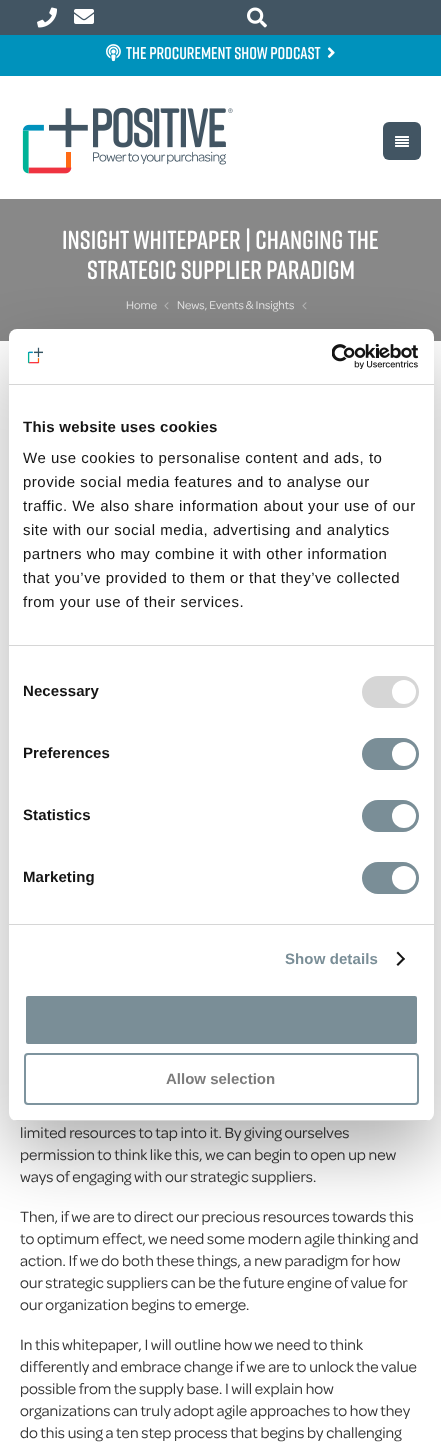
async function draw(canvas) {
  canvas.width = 441;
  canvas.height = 1449;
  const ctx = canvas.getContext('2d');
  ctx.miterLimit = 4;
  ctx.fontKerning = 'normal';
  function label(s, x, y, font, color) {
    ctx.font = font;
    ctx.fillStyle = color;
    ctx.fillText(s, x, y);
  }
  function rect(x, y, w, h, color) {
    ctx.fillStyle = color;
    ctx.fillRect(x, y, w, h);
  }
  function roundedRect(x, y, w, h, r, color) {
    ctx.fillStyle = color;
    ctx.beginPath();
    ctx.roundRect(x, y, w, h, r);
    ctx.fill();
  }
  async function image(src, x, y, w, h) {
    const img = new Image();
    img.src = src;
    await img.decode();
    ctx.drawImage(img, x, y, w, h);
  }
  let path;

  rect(0, 0, 441, 1449, '#fff');
  rect(0, 0, 441, 35, '#425563');
  await image('assets/img1.png', 37, 7, 20, 21);
  await image('assets/img2.png', 74, 9, 20, 15);
  await image('assets/img3.png', 247, 7, 20, 21);
  rect(0, 35, 441, 41, '#0092bc');
  await image('assets/img4.png', 106, 44, 15, 18);
  label('The Procurement Show Podcast', 126, 59, '600 17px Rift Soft', '#fff');
  await image('assets/img5.png', 327, 47, 8, 11);
  await image('assets/img6.png', 22, 107, 211, 67);
  roundedRect(383, 122, 38, 38, 6, '#425563');
  await image('assets/img7.png', 395, 136, 14, 11);
  rect(0, 199, 441, 142, '#888');
  label('Insight Whitepaper | Changing the', 62, 249, '600 26px Rift Soft', '#fff');
  label('strategic supplier paradigm', 87, 279, '600 26px Rift Soft', '#fff');
  label('Home', 126, 309, '12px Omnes', '#e7e7e7');
  await image('assets/img8.png', 164, 302, 5, 8);
  label('News, Events & Insights', 177, 309, '12px Omnes', '#e7e7e7');
  await image('assets/img8.png', 302, 302, 5, 8);
  label('limited resources to tap into it. By giving ourselves', 20, 1138, '16px Omnes', '#333');
  label('permission to think like this, we can begin to open up new', 20, 1160, '16px Omnes', '#333');
  label('ways of engaging with our strategic suppliers.', 20, 1182, '16px Omnes', '#333');
  label('Then, if we are to direct our precious resources towards this', 20, 1222, '16px Omnes', '#333');
  label('to optimum effect, we need some modern agile thinking and', 20, 1244, '16px Omnes', '#333');
  label('action. If we do both these things, a new paradigm for how', 20, 1266, '16px Omnes', '#333');
  label('our strategic suppliers can be the future engine of value for', 20, 1288, '16px Omnes', '#333');
  label('our organization begins to emerge.', 20, 1310, '16px Omnes', '#333');
  label('In this whitepaper, I will outline how we need to think', 20, 1350, '16px Omnes', '#333');
  label('differently and embrace change if we are to unlock the value', 20, 1372, '16px Omnes', '#333');
  label('possible from the supply base. I will explain how', 20, 1394, '16px Omnes', '#333');
  label('organizations can truly adopt agile approaches to how they', 20, 1416, '16px Omnes', '#333');
  label('do this using a ten step process that begins by challenging', 20, 1438, '16px Omnes', '#333');
  ctx.fillStyle = '#0000004d';
  ctx.filter = 'blur(34px)';
  ctx.beginPath();
  ctx.roundRect(9, 361, 425, 792, 8);
  ctx.fill();
  ctx.filter = 'none';
  roundedRect(9, 329, 425, 792, 8, '#fff');
  rect(9, 384, 425, 1, '#d6d6d6');
  await image('assets/img9.png', 27, 347, 16, 17);
  await image('assets/img10.png', 332, 344, 87, 25);
  rect(9, 645, 425, 1, '#d6d6d6');
  ctx.letterSpacing = '0.25px';
  label('This website uses cookies', 23, 432, 'bold 15px Liberation Sans', '#141414');
  ctx.letterSpacing = '0.5px';
  label('We use cookies to personalise content and ads, to', 23, 463, '15px Liberation Sans', '#141414');
  label('provide social media features and to analyse our', 23, 487, '15px Liberation Sans', '#141414');
  label('traffic. We also share information about your use of our', 23, 511, '15px Liberation Sans', '#141414');
  label('site with our social media, advertising and analytics', 23, 535, '15px Liberation Sans', '#141414');
  label('partners who may combine it with other information', 23, 559, '15px Liberation Sans', '#141414');
  label('that you’ve provided to them or that they’ve collected', 23, 583, '15px Liberation Sans', '#141414');
  label('from your use of their services.', 23, 607, '15px Liberation Sans', '#141414');
  rect(9, 924, 425, 1, '#d6d6d6');
  ctx.letterSpacing = '0.1px';
  label('Necessary', 23, 696, 'bold 15px Liberation Sans', '#141414');
  roundedRect(362, 676, 57, 32, 16, '#d6d6d6');
  ctx.fillStyle = '#fff';
  ctx.beginPath();
  ctx.arc(404, 692, 12, 0, 2 * Math.PI);
  ctx.fill();
  label('Preferences', 23, 758, 'bold 15px Liberation Sans', '#141414');
  roundedRect(362, 738, 57, 32, 16, '#7a8e97');
  ctx.fillStyle = '#fff';
  ctx.beginPath();
  ctx.arc(404, 754, 12, 0, 2 * Math.PI);
  ctx.fill();
  label('Statistics', 23, 820, 'bold 15px Liberation Sans', '#141414');
  roundedRect(362, 800, 57, 32, 16, '#7a8e97');
  ctx.fillStyle = '#fff';
  ctx.beginPath();
  ctx.arc(404, 816, 12, 0, 2 * Math.PI);
  ctx.fill();
  label('Marketing', 23, 882, 'bold 15px Liberation Sans', '#141414');
  roundedRect(362, 862, 57, 32, 16, '#7a8e97');
  ctx.fillStyle = '#fff';
  ctx.beginPath();
  ctx.arc(404, 878, 12, 0, 2 * Math.PI);
  ctx.fill();
  label('Show details', 285, 964, 'bold 15px Liberation Sans', '#7a8e97');
  ctx.fillStyle = '#141414';
  path = new Path2D('M398 951.5L405 959L403.5 960L396.5 953Z');
  ctx.fill(path);
  path = new Path2D('M403.5 957.5L405 959L398 966L396.5 964.5Z');
  ctx.fill(path);
  ctx.save();
  ctx.beginPath();
  ctx.roundRect(9, 329, 425, 792, 8);
  ctx.clip();
  rect(9, 1120, 425, 1, '#d6d6d6');
  ctx.restore();
  ctx.fillStyle = '#7a8e97';
  ctx.beginPath();
  ctx.roundRect(25, 995, 393, 50, 3);
  ctx.fill();
  ctx.strokeStyle = '#fff';
  ctx.lineWidth = 2;
  ctx.stroke();
  ctx.beginPath();
  ctx.roundRect(25, 1054, 393, 50, 3);
  ctx.strokeStyle = '#7e949e';
  ctx.stroke();
  ctx.letterSpacing = '0px';
  label('Allow selection', 166, 1084, 'bold 15px Liberation Sans', '#7c7c7c');
}

draw(document.querySelector('canvas'));
